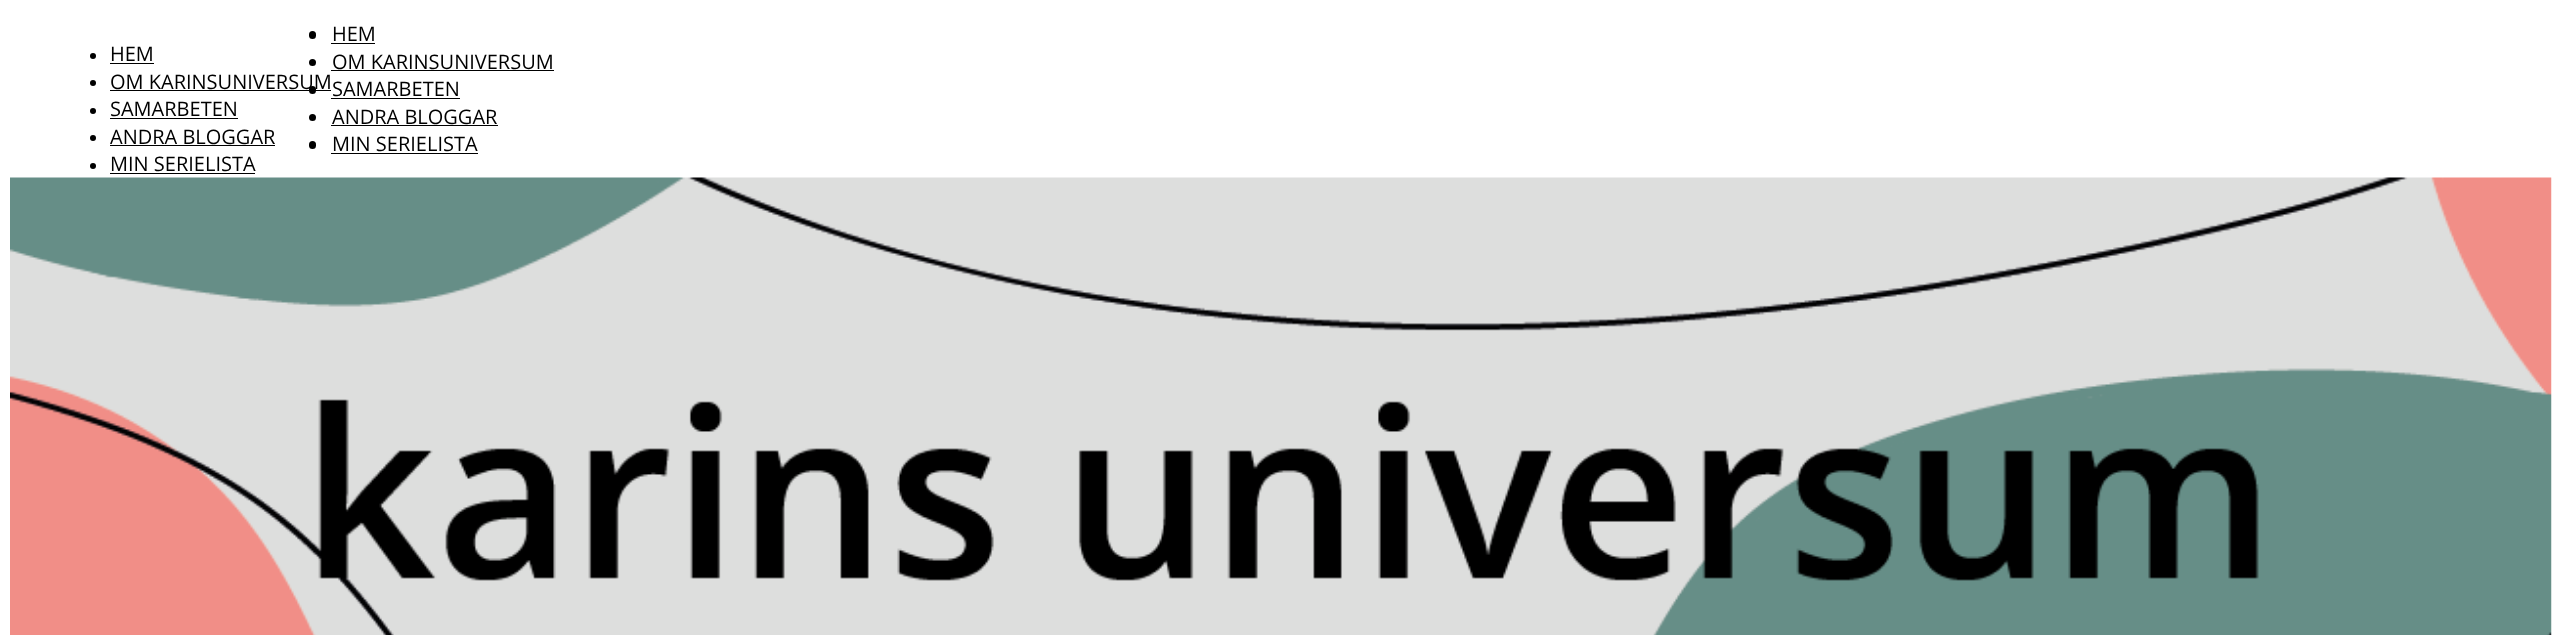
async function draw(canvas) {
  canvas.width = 2561;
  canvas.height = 635;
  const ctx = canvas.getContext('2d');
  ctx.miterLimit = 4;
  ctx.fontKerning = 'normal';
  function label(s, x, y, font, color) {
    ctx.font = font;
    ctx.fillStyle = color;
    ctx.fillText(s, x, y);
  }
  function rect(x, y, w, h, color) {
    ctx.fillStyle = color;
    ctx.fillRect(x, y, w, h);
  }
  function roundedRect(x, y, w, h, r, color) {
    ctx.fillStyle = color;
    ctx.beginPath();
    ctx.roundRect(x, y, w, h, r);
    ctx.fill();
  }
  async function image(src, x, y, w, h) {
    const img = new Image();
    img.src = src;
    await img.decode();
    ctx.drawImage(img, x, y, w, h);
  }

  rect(0, 0, 2561, 635, '#fff');
  ctx.fillStyle = '#000';
  ctx.beginPath();
  ctx.arc(93, 56, 3, 0, 2 * Math.PI);
  ctx.fill();
  label('HEM', 110, 61, '20px Open Sans', '#000');
  rect(110, 63, 44, 1, '#000');
  ctx.beginPath();
  ctx.arc(93, 83, 3, 0, 2 * Math.PI);
  ctx.fill();
  label('OM KARINSUNIVERSUM', 110, 89, '20px Open Sans', '#000');
  rect(110, 90, 221, 1, '#000');
  ctx.beginPath();
  ctx.arc(93, 111, 3, 0, 2 * Math.PI);
  ctx.fill();
  label('SAMARBETEN', 110, 116, '20px Open Sans', '#000');
  rect(110, 118, 128, 1, '#000');
  ctx.beginPath();
  ctx.arc(93, 138, 3, 0, 2 * Math.PI);
  ctx.fill();
  label('ANDRA BLOGGAR', 110, 144, '20px Open Sans', '#000');
  rect(110, 145, 165, 1, '#000');
  ctx.beginPath();
  ctx.arc(93, 166, 3, 0, 2 * Math.PI);
  ctx.fill();
  label('MIN SERIELISTA', 110, 171, '20px Open Sans', '#000');
  rect(110, 173, 145, 1, '#000');
  roundedRect(309, 31, 7, 8, 3.5, '#000');
  label('HEM', 332, 41, '20px Open Sans', '#000');
  rect(331, 43, 44, 1, '#000');
  ctx.beginPath();
  ctx.arc(312.5, 62.5, 3.5, 0, 2 * Math.PI);
  ctx.fill();
  label('OM KARINSUNIVERSUM', 332, 69, '20px Open Sans', '#000');
  rect(331, 70, 223, 1, '#000');
  roundedRect(309, 86, 7, 8, 3.5, '#000');
  label('SAMARBETEN', 332, 96, '20px Open Sans', '#000');
  rect(331, 98, 129, 1, '#000');
  ctx.beginPath();
  ctx.arc(312.5, 117.5, 3.5, 0, 2 * Math.PI);
  ctx.fill();
  label('ANDRA BLOGGAR', 332, 124, '20px Open Sans', '#000');
  rect(331, 125, 167, 1, '#000');
  roundedRect(309, 141, 7, 8, 3.5, '#000');
  label('MIN SERIELISTA', 332, 151, '20px Open Sans', '#000');
  rect(331, 153, 147, 1, '#000');
  await image('assets/img1.png', 10, 177, 2542, 458);
}

draw(document.querySelector('canvas'));
